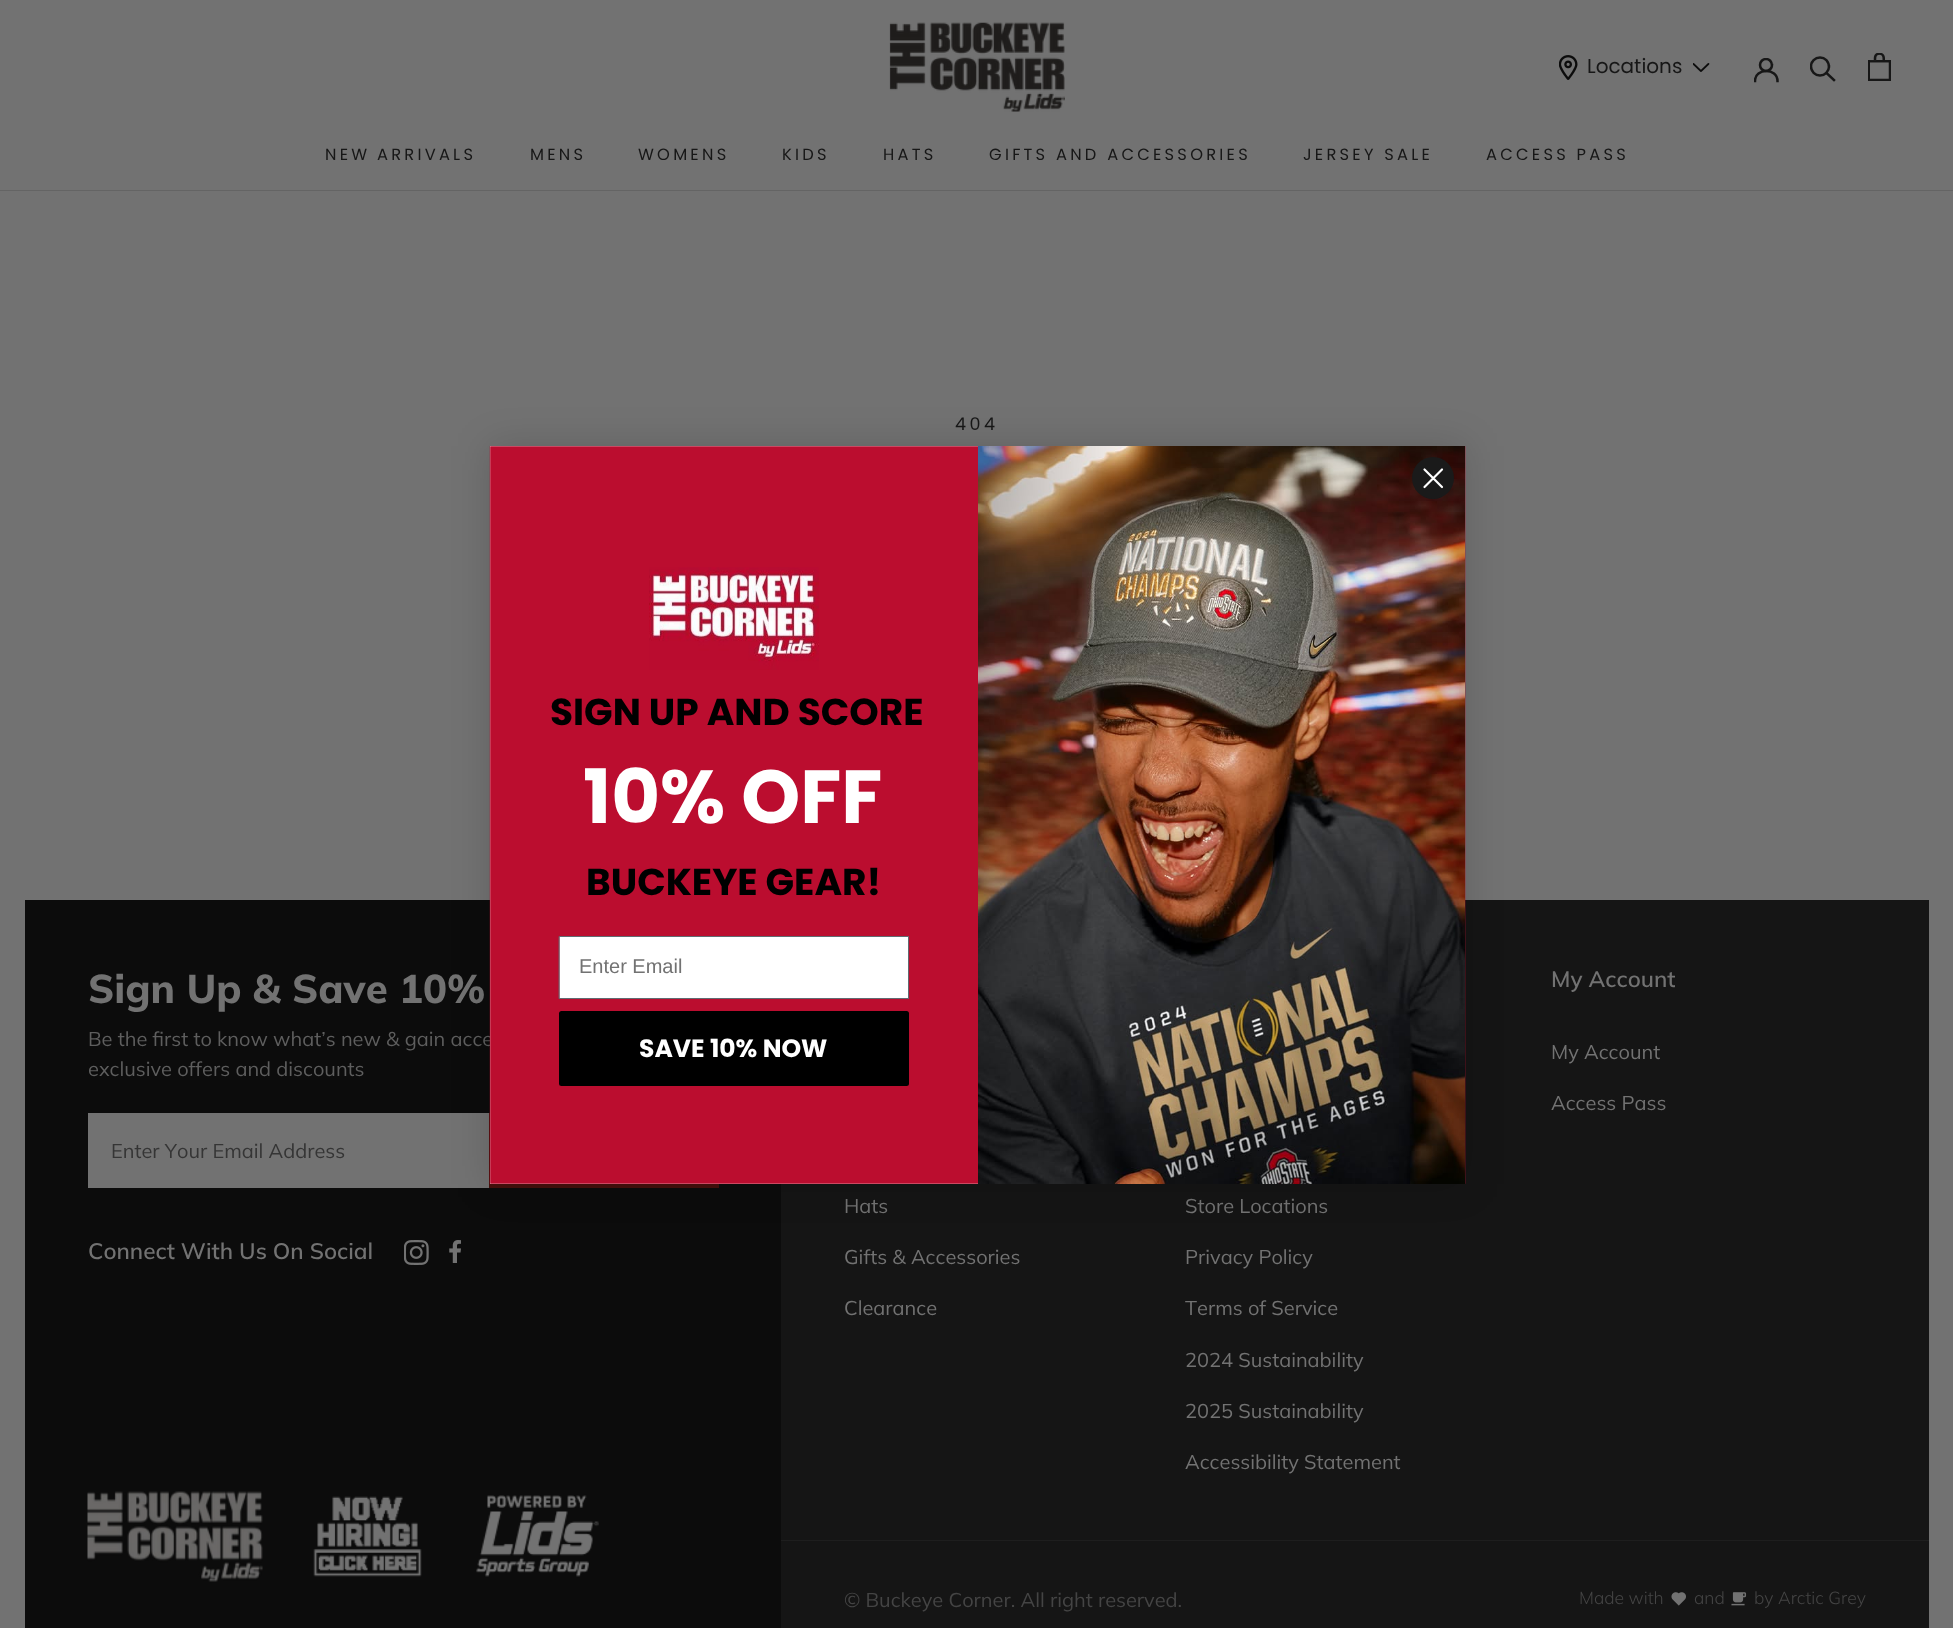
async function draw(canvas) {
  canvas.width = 1953;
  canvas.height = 1628;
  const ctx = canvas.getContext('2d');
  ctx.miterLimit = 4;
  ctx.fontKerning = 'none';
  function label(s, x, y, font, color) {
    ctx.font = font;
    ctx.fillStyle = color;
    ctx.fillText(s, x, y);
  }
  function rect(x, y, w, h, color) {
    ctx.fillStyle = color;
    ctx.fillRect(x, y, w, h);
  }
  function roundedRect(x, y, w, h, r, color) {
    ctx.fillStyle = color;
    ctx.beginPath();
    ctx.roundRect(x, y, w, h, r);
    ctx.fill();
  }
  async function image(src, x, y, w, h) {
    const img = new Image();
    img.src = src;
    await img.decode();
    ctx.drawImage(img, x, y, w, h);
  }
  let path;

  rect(0, 0, 1953, 1628, '#727272');
  rect(0, 190, 1953, 1, '#646464');
  await image('assets/img1.png', 889, 22, 176, 90);
  await image('assets/img2.png', 1559, 55, 19, 25);
  label('Locations', 1587, 73, '20px Poppins', '#171717');
  await image('assets/img3.png', 1693, 63, 17, 9);
  ctx.save();
  ctx.beginPath();
  ctx.rect(1754, 58, 25, 25);
  ctx.clip();
  path = new Path2D('M1755 81C1755 67.5 1777.5 67.5 1777.5 81');
  ctx.strokeStyle = '#171717';
  ctx.lineWidth = 2.5;
  ctx.lineCap = 'square';
  ctx.stroke(path);
  ctx.beginPath();
  ctx.arc(1766, 65, 6, 0, 2 * Math.PI);
  ctx.stroke();
  ctx.restore();
  path = new Path2D('M1834 80L1826.5 73');
  ctx.strokeStyle = '#171717';
  ctx.lineWidth = 2.5;
  ctx.lineCap = 'square';
  ctx.stroke(path);
  ctx.save();
  ctx.beginPath();
  ctx.rect(1810, 56, 26, 27);
  ctx.clip();
  ctx.beginPath();
  ctx.arc(1820, 66.5, 9, 0, 2 * Math.PI);
  ctx.stroke();
  ctx.restore();
  await image('assets/img4.png', 1868, 53, 23, 28);
  ctx.letterSpacing = '3.25px';
  ctx.wordSpacing = '-1px';
  label('NEW ARRIVALS', 325, 160, '16.25px Poppins', '#171717');
  ctx.wordSpacing = '0px';
  label('MENS', 530, 160, '16.25px Poppins', '#171717');
  label('WOMENS', 638, 160, '16.25px Poppins', '#171717');
  label('KIDS', 782, 160, '16.25px Poppins', '#171717');
  label('HATS', 883, 160, '16.25px Poppins', '#171717');
  label('GIFTS AND ACCESSORIES', 989, 160, '16.25px Poppins', '#171717');
  label('JERSEY SALE', 1303, 160, '16.25px Poppins', '#171717');
  label('ACCESS PASS', 1486, 160, '16.25px Poppins', '#171717');
  ctx.letterSpacing = '3.5px';
  label('404', 955, 430, '17.5px Poppins', '#171717');
  rect(781, 900, 1148, 728, '#151515');
  rect(25, 900, 756, 728, '#0c0c0c');
  ctx.letterSpacing = '0px';
  label('Sign Up & Save 10%', 88, 1003, '800 40px Mulish', '#727272');
  label('Be the first to know what’s new & gain acce', 88, 1046, '20px Mulish', '#5e5e5e');
  label('exclusive offers and discounts', 88, 1076, '20px Mulish', '#5e5e5e');
  rect(88, 1113, 401, 75, '#727272');
  label('Enter Your Email Address', 111, 1158, '20px Mulish', '#353535');
  rect(489, 1113, 230, 75, '#46100c');
  label('Connect With Us On Social', 88, 1259, '600 22.5px Mulish', '#727272');
  await image('assets/img5.png', 404, 1240, 25, 25);
  await image('assets/img6.png', 449, 1240, 12, 23);
  await image('assets/img7.png', 87, 1491, 176, 91);
  await image('assets/img8.png', 313, 1496, 109, 81);
  await image('assets/img9.png', 476, 1495, 123, 82);
  label('My Account', 1551, 987, '600 22.5px Mulish', '#727272');
  label('My Account', 1551, 1059, '20px Mulish', '#727272');
  label('Access Pass', 1551, 1110, '20px Mulish', '#727272');
  label('Hats', 844, 1213, '20px Mulish', '#727272');
  label('Gifts & Accessories', 844, 1264, '20px Mulish', '#727272');
  label('Clearance', 844, 1315, '20px Mulish', '#727272');
  label('Store Locations', 1185, 1213, '20px Mulish', '#727272');
  label('Privacy Policy', 1185, 1264, '20px Mulish', '#727272');
  label('Terms of Service', 1185, 1315, '20px Mulish', '#727272');
  label('2024 Sustainability', 1185, 1367, '20px Mulish', '#727272');
  label('2025 Sustainability', 1185, 1418, '20px Mulish', '#727272');
  label('Accessibility Statement', 1185, 1469, '20px Mulish', '#727272');
  rect(781, 1540, 1148, 1, '#1e1e1e');
  label('© Buckeye Corner. All right reserved.', 844, 1607, '20px Mulish', '#444');
  label('Made with', 1579, 1604, '300 17.5px Mulish', '#444');
  await image('assets/img10.png', 1671, 1592, 15, 14);
  label('and', 1694, 1604, '300 17.5px Mulish', '#444');
  await image('assets/img11.png', 1731, 1592, 16, 14);
  label('by Arctic Grey', 1754, 1604, '300 17.5px Mulish', '#444');
  ctx.fillStyle = '#00000026';
  ctx.filter = 'blur(19px)';
  ctx.beginPath();
  ctx.rect(490, 446, 975, 738);
  ctx.fill();
  ctx.filter = 'none';
  rect(490, 446, 488, 738, '#fff');
  await image('assets/img12.png', 489, 446, 977, 738);
  await image('assets/img14.png', 978, 446, 487, 738);
  ctx.fillStyle = '#1a1a1a';
  ctx.beginPath();
  ctx.arc(1433, 478, 21, 0, 2 * Math.PI);
  ctx.fill();
  path = new Path2D('M1424.5 469.5L1442 487M1424.5 487L1442 469.5Z');
  ctx.strokeStyle = '#fff';
  ctx.lineWidth = 2.2;
  ctx.lineCap = 'round';
  ctx.lineJoin = 'round';
  ctx.stroke(path);
  await image('assets/img13.png', 649, 567, 170, 103);
  label('SIGN UP AND SCORE', 550, 725, 'bold 37.5px Poppins', '#000');
  label('10% OFF', 583, 823, 'bold 75px Poppins', '#fff');
  label('BUCKEYE GEAR!', 586, 895, 'bold 37.5px Poppins', '#000');
  ctx.fillStyle = '#fff';
  ctx.beginPath();
  ctx.rect(559.5, 936.5, 349, 62);
  ctx.fill();
  ctx.strokeStyle = '#606a72';
  ctx.lineWidth = 1;
  ctx.lineJoin = 'miter';
  ctx.stroke();
  label('Enter Email', 579, 973, '20px Liberation Sans', '#727272');
  roundedRect(559, 1011, 350, 75, 2.5, '#000');
  label('SAVE 10% NOW', 639, 1057, 'bold 25px Poppins', '#fff');
}

draw(document.querySelector('canvas'));
